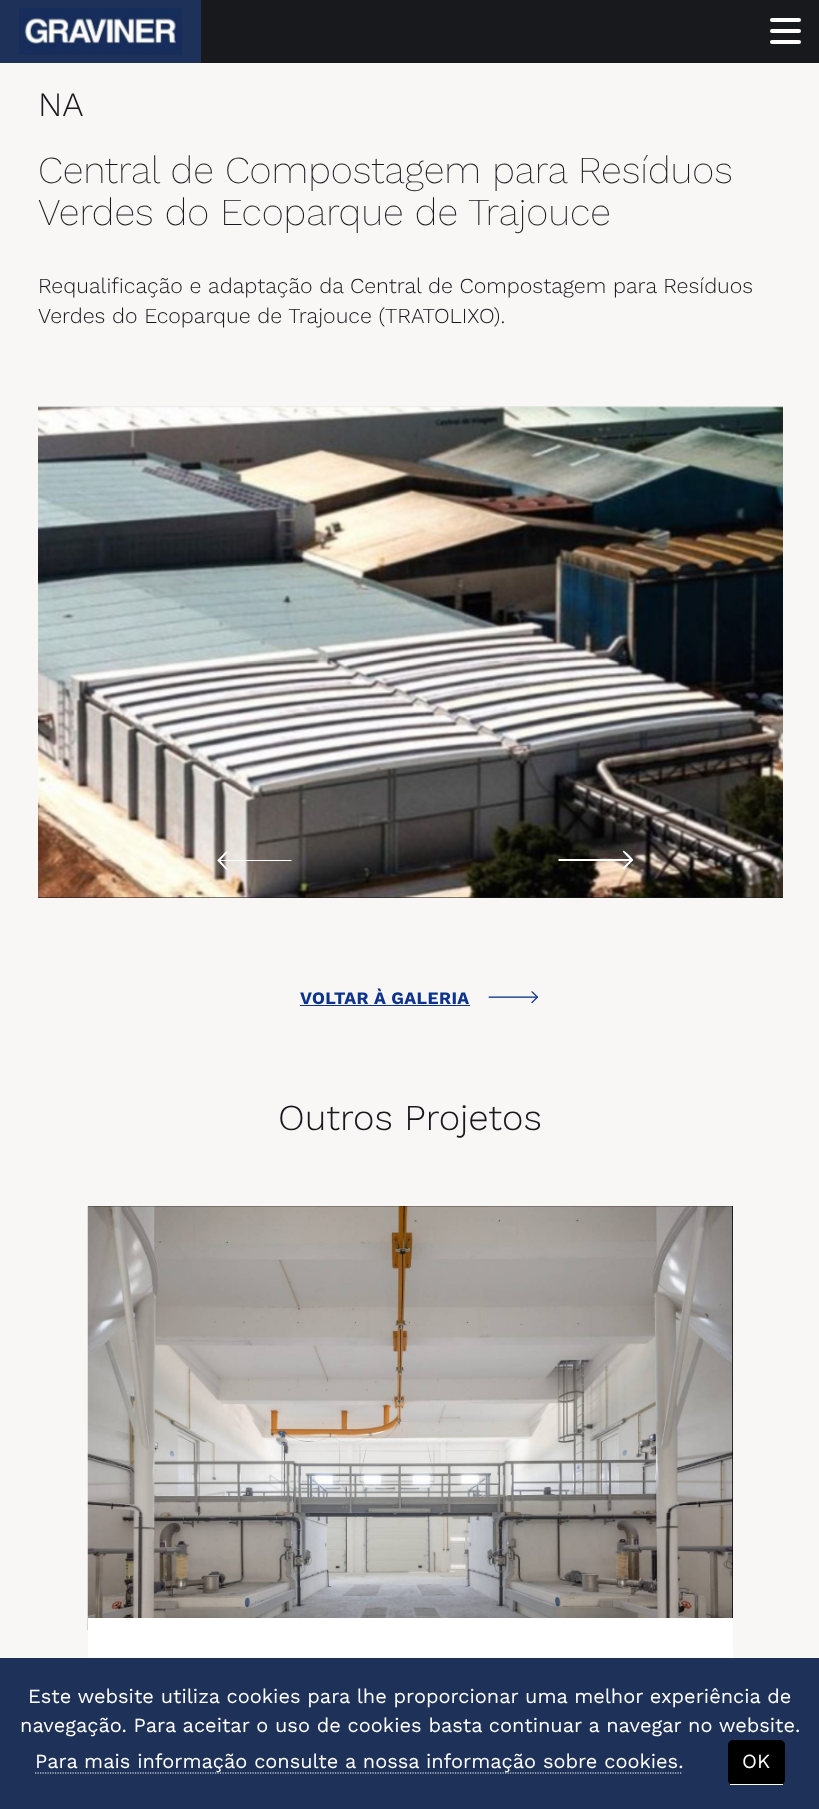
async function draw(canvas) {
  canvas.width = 819;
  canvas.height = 1809;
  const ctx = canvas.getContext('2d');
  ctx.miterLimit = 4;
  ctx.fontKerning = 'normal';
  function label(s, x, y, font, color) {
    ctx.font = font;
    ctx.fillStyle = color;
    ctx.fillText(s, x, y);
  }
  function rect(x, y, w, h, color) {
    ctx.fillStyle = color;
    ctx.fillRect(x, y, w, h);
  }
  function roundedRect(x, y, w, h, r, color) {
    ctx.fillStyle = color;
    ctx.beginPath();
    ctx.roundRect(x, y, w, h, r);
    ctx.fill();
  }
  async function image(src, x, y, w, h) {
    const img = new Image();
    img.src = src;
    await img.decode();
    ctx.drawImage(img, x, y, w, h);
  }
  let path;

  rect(0, 0, 819, 1809, '#f9f6f6');
  rect(201, 0, 618, 63, '#17191d');
  rect(0, 0, 201, 63, '#1e3159');
  await image('assets/img1.png', 19, 8, 163, 47);
  roundedRect(770, 18, 31, 4, 2, '#fff');
  roundedRect(770, 29, 31, 4, 2, '#fff');
  roundedRect(770, 40, 31, 4, 2, '#fff');
  label('NA', 38, 116, '300 34px Work Sans', '#17191d');
  label('Central de Compostagem para Resíduos', 38, 183, '200 38.1px Work Sans', '#17191d');
  label('Verdes do Ecoparque de Trajouce', 38, 225, '200 38.1px Work Sans', '#17191d');
  label('Requalificação e adaptação da Central de Compostagem para Resíduos', 38, 293, '300 21.4px Work Sans', '#17191d');
  label('Verdes do Ecoparque de Trajouce (TRATOLIXO).', 38, 323, '300 21.4px Work Sans', '#17191d');
  rect(38, 897, 745, 1, '#17191d');
  await image('assets/img2.png', 38, 406, 745, 492);
  ctx.fillStyle = '#fff';
  path = new Path2D('M217 861L218 860H291L292 861H291H218Z');
  ctx.fill(path);
  path = new Path2D('M217.5 860.5C217.5 859.5 222.5 855.5 223 854.5C223.5 854 226.5 850 227.5 851.5V852.5L220 860.5L227.5 868.5V869.5C226.5 871 223.5 867 223 866.5C222.5 865.5 217.5 861.5 217.5 860.5Z');
  ctx.fill(path);
  path = new Path2D('M633 860L632 861H559L558 860L559 859H632Z');
  ctx.fill(path);
  path = new Path2D('M633 860C633 861 628 865 627.5 866C626.5 866.5 624 870.5 623 868.5V867.5L630.5 860L623 852V851C624 849.5 626.5 853 627.5 853.5C628 854.5 633 858.5 633 860Z');
  ctx.fill(path);
  ctx.letterSpacing = '0.4px';
  label('VOLTAR À GALERIA', 300, 1004, 'bold 17.5px Work Sans', '#0c338d');
  rect(300, 1005, 170, 1, '#0c338d');
  await image('assets/img3.png', 488, 991, 50, 13);
  ctx.letterSpacing = '0px';
  label('Outros Projetos', 278, 1130, '300 36.5px Work Sans', '#17191d');
  rect(88, 1206, 645, 412, '#000');
  await image('assets/img4.png', 87, 1206, 646, 424);
  rect(88, 1618, 645, 40, '#fff');
  rect(0, 1658, 819, 151, '#1e3159');
  label('Este website utiliza cookies para lhe proporcionar uma melhor experiência de', 28, 1703, '20px Work Sans', '#fff');
  label('navegação. Para aceitar o uso de cookies basta continuar a navegar no website.', 20, 1732, '20px Work Sans', '#fff');
  path = new Path2D('M35 1773H682.5');
  ctx.strokeStyle = '#fff';
  ctx.lineWidth = 1.2;
  ctx.setLineDash([1.25, 1.25]);
  ctx.stroke(path);
  label('Para mais informação consulte a nossa informação sobre cookies.', 35, 1768, '20px Work Sans', '#fff');
  roundedRect(728, 1740, 57, 45, 5, '#000');
  rect(730, 1784, 53, 1, '#fff');
  label('OK', 742, 1768, '20px Work Sans', '#fff');
}

draw(document.querySelector('canvas'));
